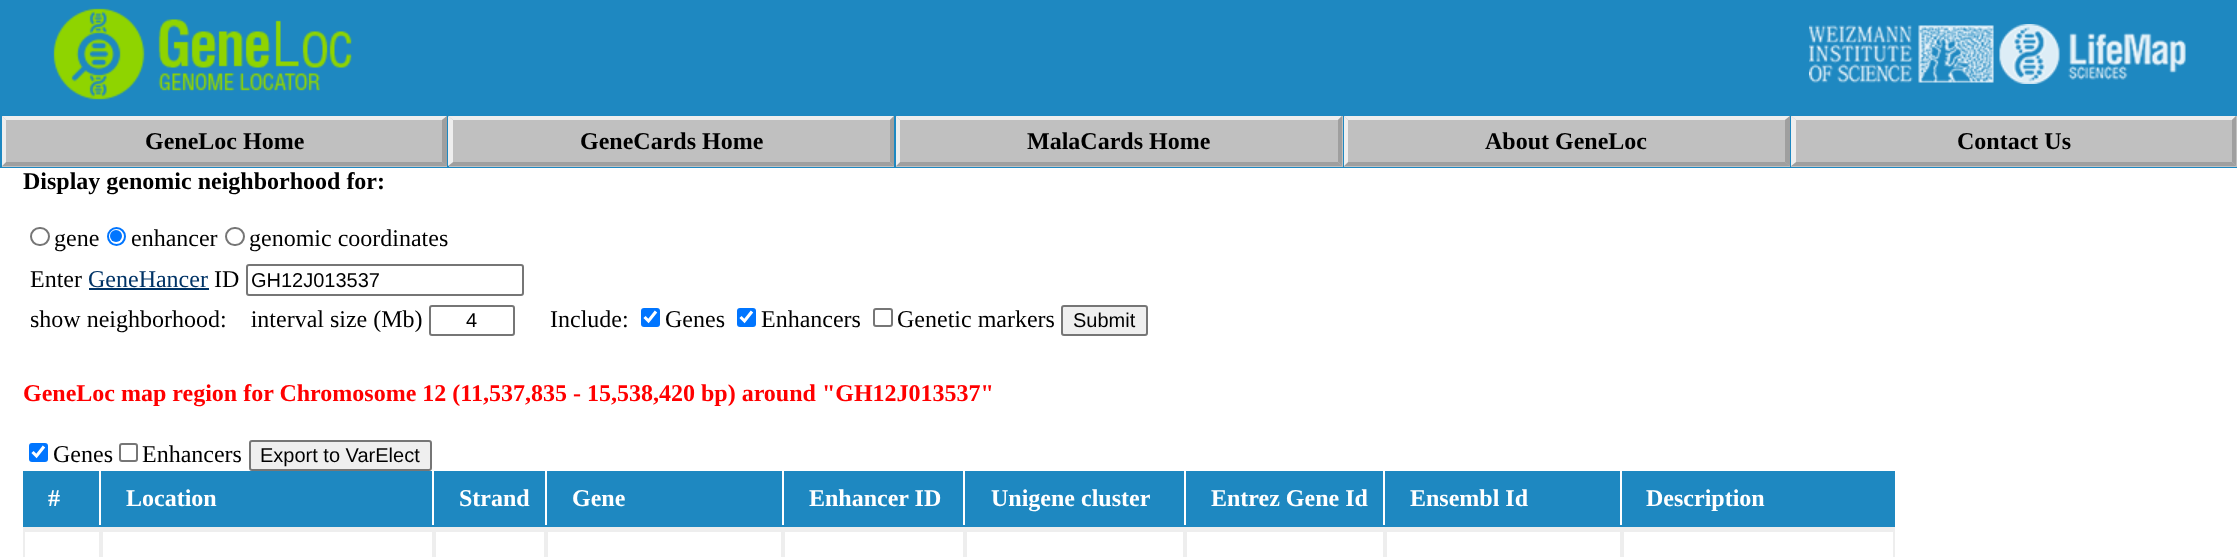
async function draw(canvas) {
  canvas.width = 2237;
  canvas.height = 557;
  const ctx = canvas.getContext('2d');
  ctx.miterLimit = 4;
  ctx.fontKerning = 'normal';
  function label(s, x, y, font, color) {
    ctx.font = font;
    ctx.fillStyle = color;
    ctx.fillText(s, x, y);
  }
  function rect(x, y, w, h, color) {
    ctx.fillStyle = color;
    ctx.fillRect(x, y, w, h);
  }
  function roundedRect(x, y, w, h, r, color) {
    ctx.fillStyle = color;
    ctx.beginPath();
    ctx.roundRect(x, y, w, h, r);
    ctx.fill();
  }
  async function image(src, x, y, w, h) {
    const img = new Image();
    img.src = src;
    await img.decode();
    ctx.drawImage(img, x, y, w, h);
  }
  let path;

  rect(0, 0, 2237, 557, '#fff');
  rect(0, 0, 2237, 168, '#1e88c1');
  await image('assets/img1.png', 53, 8, 299, 92);
  await image('assets/img2.png', 1809, 25, 185, 58);
  await image('assets/img3.png', 1999, 24, 187, 60);
  rect(2, 116, 445, 51, '#c0c0c0');
  ctx.fillStyle = '#eee';
  path = new Path2D('M2 116H447L442 120H6Z');
  ctx.fill(path);
  ctx.fillStyle = '#9f9f9f';
  path = new Path2D('M447 116V166L442 162V120Z');
  ctx.fill(path);
  path = new Path2D('M447 166H2L6 162H442Z');
  ctx.fill(path);
  ctx.fillStyle = '#eee';
  path = new Path2D('M2 166V116L6 120V162Z');
  ctx.fill(path);
  label('GeneLoc Home', 145, 149, 'bold 24px Liberation Serif', '#000');
  rect(449, 116, 445, 51, '#c0c0c0');
  ctx.fillStyle = '#eee';
  path = new Path2D('M448 116H894L890 120H453Z');
  ctx.fill(path);
  ctx.fillStyle = '#9f9f9f';
  path = new Path2D('M894 116V166L890 162V120Z');
  ctx.fill(path);
  path = new Path2D('M894 166H448L453 162H890Z');
  ctx.fill(path);
  ctx.fillStyle = '#eee';
  path = new Path2D('M448 166V116L453 120V162Z');
  ctx.fill(path);
  label('GeneCards Home', 580, 149, 'bold 24px Liberation Serif', '#000');
  rect(896, 116, 447, 51, '#c0c0c0');
  ctx.fillStyle = '#eee';
  path = new Path2D('M896 116H1342L1338 120H900Z');
  ctx.fill(path);
  ctx.fillStyle = '#9f9f9f';
  path = new Path2D('M1342 116V166L1338 162V120Z');
  ctx.fill(path);
  path = new Path2D('M1342 166H896L900 162H1338Z');
  ctx.fill(path);
  ctx.fillStyle = '#eee';
  path = new Path2D('M896 166V116L900 120V162Z');
  ctx.fill(path);
  label('MalaCards Home', 1027, 149, 'bold 24px Liberation Serif', '#000');
  rect(1344, 116, 446, 51, '#c0c0c0');
  ctx.fillStyle = '#eee';
  path = new Path2D('M1344 116H1790L1785 120H1348Z');
  ctx.fill(path);
  ctx.fillStyle = '#9f9f9f';
  path = new Path2D('M1790 116V166L1785 162V120Z');
  ctx.fill(path);
  path = new Path2D('M1790 166H1344L1348 162H1785Z');
  ctx.fill(path);
  ctx.fillStyle = '#eee';
  path = new Path2D('M1344 166V116L1348 120V162Z');
  ctx.fill(path);
  label('About GeneLoc', 1485, 149, 'bold 24px Liberation Serif', '#000');
  rect(1791, 116, 446, 51, '#c0c0c0');
  ctx.fillStyle = '#eee';
  path = new Path2D('M1791 116H2236L2232 120H1796Z');
  ctx.fill(path);
  ctx.fillStyle = '#9f9f9f';
  path = new Path2D('M2236 116V166L2232 162V120Z');
  ctx.fill(path);
  path = new Path2D('M2236 166H1791L1796 162H2232Z');
  ctx.fill(path);
  ctx.fillStyle = '#eee';
  path = new Path2D('M1791 166V116L1796 120V162Z');
  ctx.fill(path);
  label('Contact Us', 1957, 149, 'bold 24px Liberation Serif', '#000');
  label('Display genomic neighborhood for:', 23, 189, 'bold 24px Liberation Serif', '#000');
  ctx.beginPath();
  ctx.roundRect(31, 228, 18, 17, 8.5);
  ctx.strokeStyle = '#767676';
  ctx.lineWidth = 2;
  ctx.stroke();
  label('gene', 54, 246, '24px Liberation Serif', '#000');
  ctx.beginPath();
  ctx.arc(116.5, 236.5, 8.5, 0, 2 * Math.PI);
  ctx.strokeStyle = '#0075ff';
  ctx.stroke();
  ctx.fillStyle = '#0075ff';
  ctx.beginPath();
  ctx.arc(116, 236, 6, 0, 2 * Math.PI);
  ctx.fill();
  label('enhancer', 131, 246, '24px Liberation Serif', '#000');
  ctx.beginPath();
  ctx.roundRect(226, 228, 18, 17, 8.5);
  ctx.strokeStyle = '#767676';
  ctx.stroke();
  label('genomic coordinates', 249, 246, '24px Liberation Serif', '#000');
  label('Enter', 30, 287, '24px Liberation Serif', '#000');
  label('GeneHancer', 88, 287, '24px Liberation Serif', '#036');
  rect(89, 288, 120, 2, '#036');
  label('ID', 214, 287, '24px Liberation Serif', '#000');
  ctx.beginPath();
  ctx.roundRect(247, 265, 276, 30, 2);
  ctx.stroke();
  label('GH12J013537', 251, 287, '20px Liberation Sans', '#000');
  label('show neighborhood:    interval size (Mb)', 30, 327, '24px Liberation Serif', '#000');
  ctx.beginPath();
  ctx.roundRect(430, 306, 84, 29, 2);
  ctx.stroke();
  label('4', 466, 327, '20px Liberation Sans', '#000');
  label('Include:', 550, 327, '24px Liberation Serif', '#000');
  roundedRect(641, 308, 19, 19, 3, '#0075ff');
  path = new Path2D('M644.5 317L648.5 321L656 311.5');
  ctx.strokeStyle = '#fff';
  ctx.lineWidth = 3.1;
  ctx.stroke(path);
  label('Genes', 665, 327, '24px Liberation Serif', '#000');
  roundedRect(737, 308, 19, 19, 3, '#0075ff');
  path = new Path2D('M740.5 317L744.5 321L752 311.5');
  ctx.stroke(path);
  label('Enhancers', 761, 327, '24px Liberation Serif', '#000');
  ctx.beginPath();
  ctx.roundRect(874, 309, 18, 17, 2);
  ctx.strokeStyle = '#767676';
  ctx.lineWidth = 2;
  ctx.stroke();
  label('Genetic markers', 897, 327, '24px Liberation Serif', '#000');
  ctx.fillStyle = '#efefef';
  ctx.beginPath();
  ctx.roundRect(1062, 306, 85, 29, 2);
  ctx.fill();
  ctx.stroke();
  label('Submit', 1073, 327, '20px Liberation Sans', '#000');
  label('GeneLoc map region for Chromosome 12 (11,537,835 - 15,538,420 bp) around "GH12J013537"', 23, 401, 'bold 24px Liberation Serif', '#f00');
  roundedRect(29, 443, 19, 19, 3, '#0075ff');
  path = new Path2D('M32.5 452L36.5 456L44 446.5');
  ctx.strokeStyle = '#fff';
  ctx.lineWidth = 3.1;
  ctx.stroke(path);
  label('Genes', 53, 462, '24px Liberation Serif', '#000');
  ctx.beginPath();
  ctx.roundRect(120, 444, 17, 17, 2);
  ctx.strokeStyle = '#767676';
  ctx.lineWidth = 2;
  ctx.stroke();
  label('Enhancers', 142, 462, '24px Liberation Serif', '#000');
  ctx.fillStyle = '#efefef';
  ctx.beginPath();
  ctx.roundRect(250, 441, 181, 29, 2);
  ctx.fill();
  ctx.stroke();
  label('Export to VarElect', 260, 462, '20px Liberation Sans', '#000');
  rect(23, 471, 1872, 56, '#1e88c1');
  rect(23, 527, 1872, 3, '#eee');
  label('#', 48, 506, 'bold 24px Liberation Serif', '#fff');
  rect(99, 471, 2, 54, '#fff');
  label('Location', 126, 506, 'bold 24px Liberation Serif', '#fff');
  rect(432, 471, 2, 54, '#fff');
  label('Strand', 459, 506, 'bold 24px Liberation Serif', '#fff');
  rect(545, 471, 2, 54, '#fff');
  label('Gene', 572, 506, 'bold 24px Liberation Serif', '#fff');
  rect(782, 471, 2, 54, '#fff');
  label('Enhancer ID', 809, 506, 'bold 24px Liberation Serif', '#fff');
  rect(963, 471, 2, 54, '#fff');
  label('Unigene cluster', 991, 506, 'bold 24px Liberation Serif', '#fff');
  rect(1184, 471, 2, 54, '#fff');
  label('Entrez Gene Id', 1211, 506, 'bold 24px Liberation Serif', '#fff');
  rect(1383, 471, 2, 54, '#fff');
  label('Ensembl Id', 1410, 506, 'bold 24px Liberation Serif', '#fff');
  rect(1620, 471, 2, 54, '#fff');
  label('Description', 1646, 506, 'bold 24px Liberation Serif', '#fff');
  ctx.strokeStyle = '#eee';
  ctx.strokeRect(24, 531, 76, 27);
  ctx.strokeRect(102, 531, 331, 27);
  ctx.strokeRect(435, 531, 110, 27);
  ctx.strokeRect(547, 531, 235, 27);
  ctx.strokeRect(784, 531, 180, 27);
  ctx.strokeRect(966, 531, 218, 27);
  ctx.strokeRect(1186, 531, 198, 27);
  ctx.strokeRect(1386, 531, 235, 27);
  ctx.strokeRect(1623, 531, 271, 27);
}

draw(document.querySelector('canvas'));
